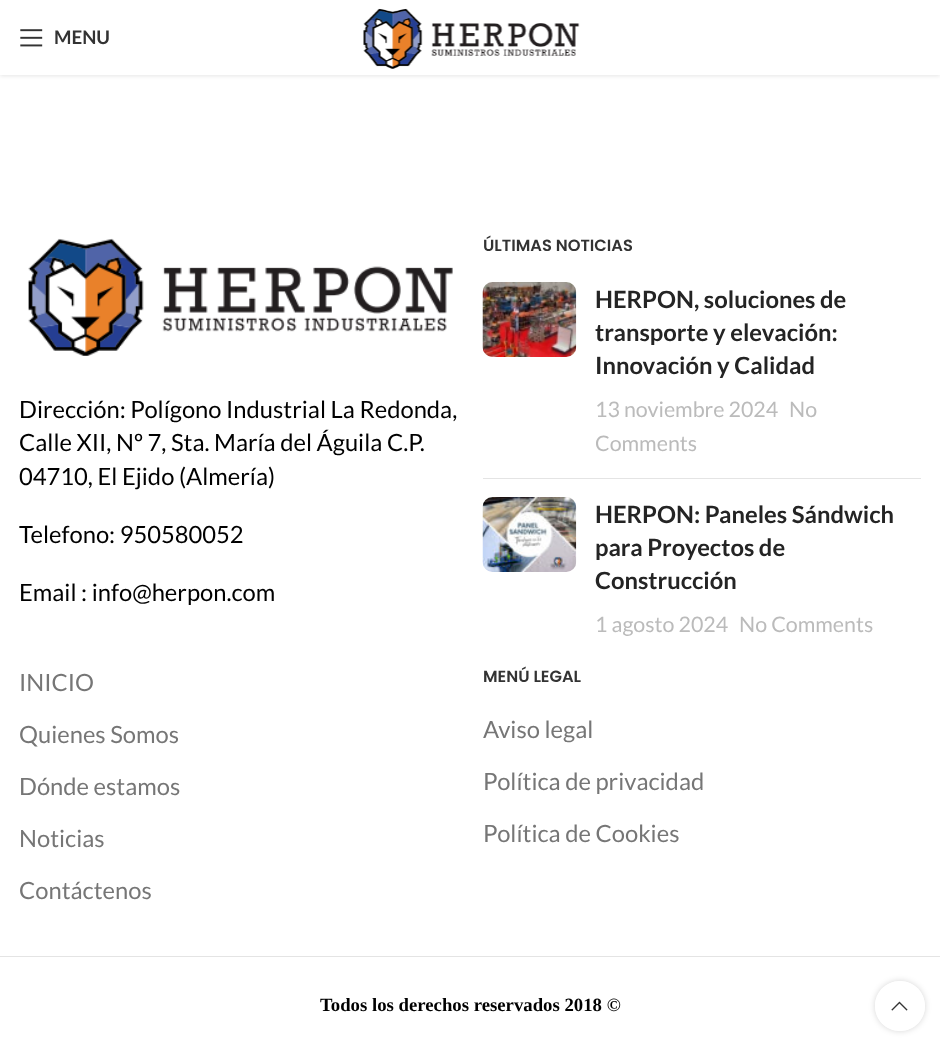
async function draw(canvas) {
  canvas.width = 940;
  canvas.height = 1046;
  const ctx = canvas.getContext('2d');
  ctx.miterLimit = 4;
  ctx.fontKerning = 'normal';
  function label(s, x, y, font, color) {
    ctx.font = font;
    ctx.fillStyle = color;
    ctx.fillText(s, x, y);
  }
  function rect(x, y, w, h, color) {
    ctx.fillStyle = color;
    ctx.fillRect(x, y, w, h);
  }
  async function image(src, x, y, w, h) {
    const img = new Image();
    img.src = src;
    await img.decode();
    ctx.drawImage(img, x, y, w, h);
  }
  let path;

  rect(0, 0, 940, 1046, '#fff');
  ctx.fillStyle = '#0000001a';
  ctx.filter = 'blur(2px)';
  ctx.beginPath();
  ctx.rect(0, 1, 940, 75);
  ctx.fill();
  ctx.filter = 'none';
  rect(0, 0, 940, 75, '#fff');
  await image('assets/img1.png', 20, 29, 23, 18);
  label('MENU', 54, 44, 'bold 18.75px Lato', '#333');
  await image('assets/img2.png', 363, 8, 217, 61);
  await image('assets/img3.png', 28, 238, 425, 118);
  label('Dirección: Polígono Industrial La Redonda,', 19, 418, '23.75px Lato', '#000');
  label('Calle XII, Nº 7, Sta. María del Águila C.P.', 19, 451, '23.75px Lato', '#000');
  label('04710, El Ejido (Almería)', 19, 485, '23.75px Lato', '#000');
  label('Telefono: 950580052', 19, 543, '23.75px Lato', '#000');
  label('Email : info@herpon.com', 19, 601, '23.75px Lato', '#000');
  label('ÚLTIMAS NOTICIAS', 483, 251, '600 16.25px Poppins', '#333');
  rect(483, 478, 438, 1, '#e4e4e4');
  await image('assets/img4.png', 482, 282, 95, 75);
  label('HERPON, soluciones de', 595, 308, 'bold 23.75px Lato', '#242424');
  label('transporte y elevación:', 595, 341, 'bold 23.75px Lato', '#242424');
  label('Innovación y Calidad', 595, 374, 'bold 23.75px Lato', '#242424');
  label('13 noviembre 2024', 595, 417, '21.4px Lato', '#bbb');
  label('No', 789, 417, '21.4px Lato', '#bbb');
  label('Comments', 595, 451, '21.4px Lato', '#bbb');
  await image('assets/img5.png', 482, 497, 95, 75);
  label('HERPON: Paneles Sándwich', 595, 523, 'bold 23.75px Lato', '#242424');
  label('para Proyectos de', 595, 556, 'bold 23.75px Lato', '#242424');
  label('Construcción', 595, 589, 'bold 23.75px Lato', '#242424');
  label('1 agosto 2024', 595, 632, '21.4px Lato', '#bbb');
  label('No Comments', 739, 632, '21.4px Lato', '#bbb');
  label('INICIO', 19, 691, '23.75px Lato', '#767676');
  label('Quienes Somos', 19, 743, '23.75px Lato', '#767676');
  label('Dónde estamos', 19, 795, '23.75px Lato', '#767676');
  label('Noticias', 19, 847, '23.75px Lato', '#767676');
  label('Contáctenos', 19, 899, '23.75px Lato', '#767676');
  label('MENÚ LEGAL', 483, 682, '600 16.25px Poppins', '#333');
  label('Aviso legal', 483, 738, '23.75px Lato', '#767676');
  label('Política de privacidad', 483, 790, '23.75px Lato', '#767676');
  label('Política de Cookies', 483, 842, '23.75px Lato', '#767676');
  rect(0, 956, 940, 1, '#e4e4e4');
  label('Todos los derechos reservados 2018 ©', 320, 1011, 'bold 18.75px Liberation Serif', '#000');
  ctx.save();
  path = new Path2D('M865 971H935V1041H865ZM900 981C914 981 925 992 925 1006C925 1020 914 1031 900 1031C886 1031 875 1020 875 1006C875 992 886 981 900 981Z');
  ctx.clip(path, 'evenodd');
  ctx.fillStyle = '#0000002b';
  ctx.filter = 'blur(3px)';
  ctx.beginPath();
  ctx.roundRect(875, 981, 50, 50, 25);
  ctx.fill();
  ctx.filter = 'none';
  ctx.restore();
  ctx.fillStyle = '#ffffffe6';
  ctx.beginPath();
  ctx.arc(900, 1006, 25, 0, 2 * Math.PI);
  ctx.fill();
  await image('assets/img6.png', 891, 1001, 17, 10);
}

draw(document.querySelector('canvas'));
